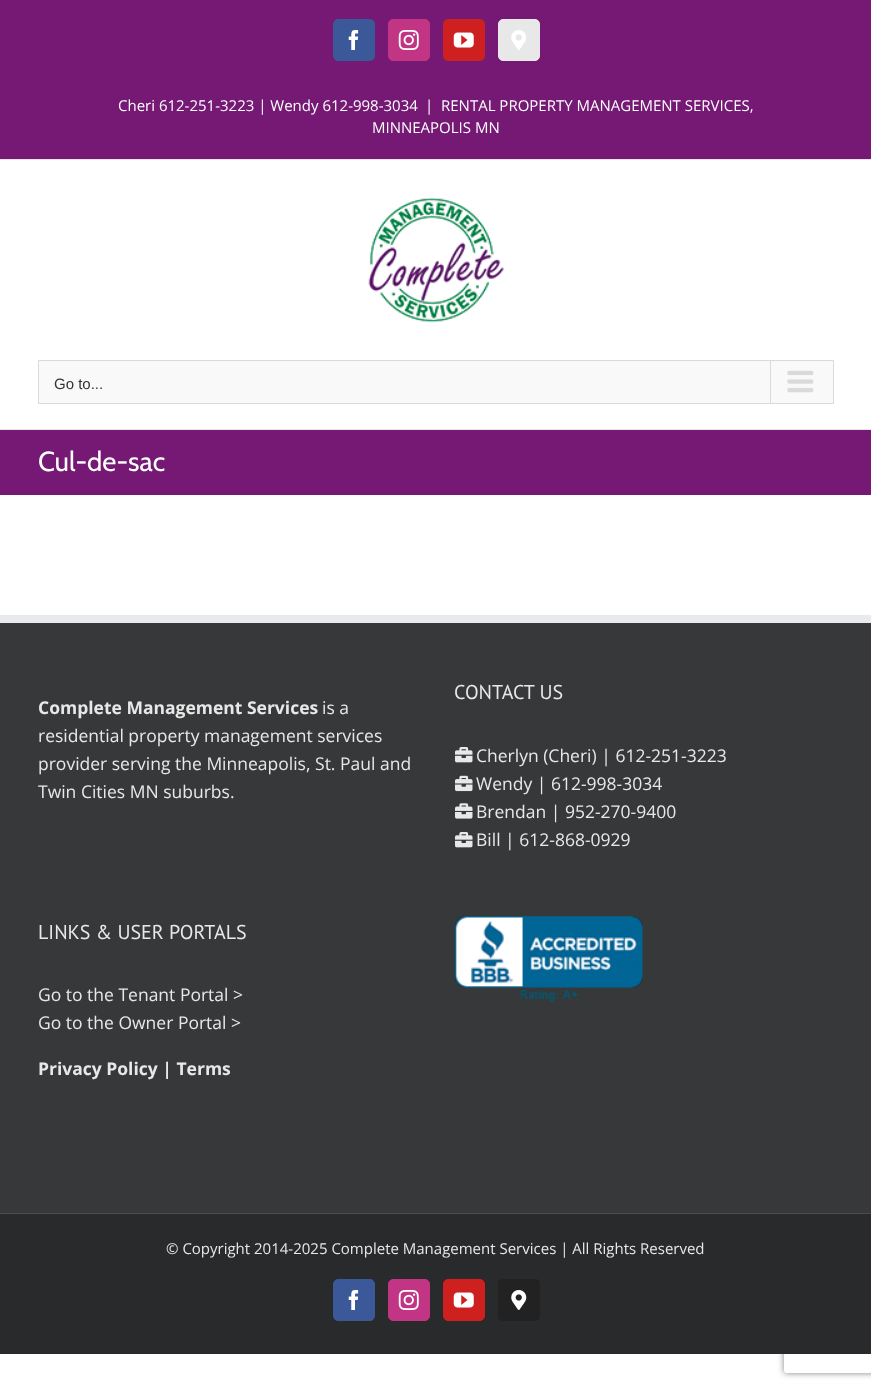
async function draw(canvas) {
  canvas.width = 871;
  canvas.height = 1390;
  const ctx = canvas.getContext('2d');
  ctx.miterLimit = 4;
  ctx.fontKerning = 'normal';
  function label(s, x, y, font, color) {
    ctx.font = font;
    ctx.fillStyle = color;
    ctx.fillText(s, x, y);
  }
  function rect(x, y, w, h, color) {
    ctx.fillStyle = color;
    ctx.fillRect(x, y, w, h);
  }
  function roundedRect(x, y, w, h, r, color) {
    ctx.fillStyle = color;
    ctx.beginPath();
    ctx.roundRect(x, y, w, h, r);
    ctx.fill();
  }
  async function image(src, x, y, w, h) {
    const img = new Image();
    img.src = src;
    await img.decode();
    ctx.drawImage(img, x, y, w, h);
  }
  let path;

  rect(0, 0, 871, 1390, '#fff');
  rect(0, 0, 871, 159, '#751975');
  rect(0, 159, 871, 1, '#e5e5e5');
  ctx.fillStyle = '#3b5998';
  ctx.beginPath();
  ctx.roundRect(333.5, 19.5, 41, 41, 4.5);
  ctx.fill();
  ctx.strokeStyle = '#3b5998';
  ctx.stroke();
  await image('assets/img1.png', 348, 30, 11, 20);
  ctx.fillStyle = '#c13584';
  ctx.beginPath();
  ctx.roundRect(388.5, 19.5, 41, 41, 4.5);
  ctx.fill();
  ctx.strokeStyle = '#c13584';
  ctx.stroke();
  await image('assets/img2.png', 398, 30, 21, 20);
  ctx.fillStyle = '#cd201f';
  ctx.beginPath();
  ctx.roundRect(443.5, 19.5, 41, 41, 4.5);
  ctx.fill();
  ctx.strokeStyle = '#cd201f';
  ctx.stroke();
  await image('assets/img3.png', 453, 32, 21, 16);
  ctx.fillStyle = '#e8e8e8';
  ctx.beginPath();
  ctx.roundRect(498.5, 19.5, 41, 41, 4.5);
  ctx.fill();
  ctx.strokeStyle = '#e8e8e8';
  ctx.stroke();
  await image('assets/img4.png', 511, 30, 16, 20);
  label('Cheri 612-251-3223 | Wendy 612-998-3034', 118, 111, '15px Open Sans', '#fff');
  label('|', 425, 111, '15px Open Sans', '#fff');
  label('RENTAL PROPERTY MANAGEMENT SERVICES,', 441, 111, '15px Open Sans', '#fff');
  label('MINNEAPOLIS MN', 372, 133, '15px Open Sans', '#fff');
  rect(0, 429, 871, 1, '#e5e5e5');
  await image('assets/img5.png', 368, 197, 136, 126);
  ctx.fillStyle = '#f9f9f9';
  ctx.beginPath();
  ctx.rect(38.5, 360.5, 795, 43);
  ctx.fill();
  ctx.strokeStyle = '#dadada';
  ctx.stroke();
  label('Go to...', 54, 389, '15px Liberation Sans', '#333');
  rect(770, 361, 1, 42, '#dadada');
  await image('assets/img6.png', 787, 370, 27, 23);
  rect(0, 430, 871, 65, '#751975');
  label('Cul-de-sac', 38, 471, '27.5px Cabin', '#fff');
  rect(0, 623, 871, 590, '#363839');
  rect(0, 615, 871, 8, '#e9eaee');
  label('Complete Management Services', 38, 714, 'bold 17.5px Open Sans', '#e8e8e8');
  label('is a', 322, 714, '17.5px Open Sans', '#e8e8e8');
  label('residential property management services', 38, 742, '17.5px Open Sans', '#e8e8e8');
  label('provider serving the Minneapolis, St. Paul and', 38, 770, '17.5px Open Sans', '#e8e8e8');
  label('Twin Cities MN suburbs.', 38, 798, '17.5px Open Sans', '#e8e8e8');
  label('CONTACT US', 454, 699, '20px PT Sans', '#e8e8e8');
  await image('assets/img7.png', 455, 747, 18, 16);
  label('Cherlyn (Cheri) | 612-251-3223', 476, 762, '17.5px Open Sans', '#e8e8e8');
  await image('assets/img8.png', 455, 775, 18, 17);
  label('Wendy | 612-998-3034', 476, 790, '17.5px Open Sans', '#e8e8e8');
  await image('assets/img9.png', 455, 803, 18, 16);
  label('Brendan | 952-270-9400', 476, 818, '17.5px Open Sans', '#e8e8e8');
  await image('assets/img7.png', 455, 832, 18, 16);
  label('Bill | 612-868-0929', 476, 846, '17.5px Open Sans', '#e8e8e8');
  label('LINKS & USER PORTALS', 38, 939, '20px PT Sans', '#e8e8e8');
  label('Go to the Tenant Portal >', 38, 1001, '17.5px Open Sans', '#e8e8e8');
  label('Go to the Owner Portal >', 38, 1029, '17.5px Open Sans', '#e8e8e8');
  label('Privacy Policy | Terms', 38, 1075, 'bold 17.5px Open Sans', '#e8e8e8');
  await image('assets/img10.png', 455, 916, 188, 86);
  ctx.save();
  path = new Path2D('M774 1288H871V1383H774ZM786.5 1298H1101.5C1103 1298 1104 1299 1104 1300.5V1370.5C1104 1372 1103 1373 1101.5 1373H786.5C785 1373 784 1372 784 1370.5V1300.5C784 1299 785 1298 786.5 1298Z');
  ctx.clip(path, 'evenodd');
  ctx.fillStyle = '#808080';
  ctx.filter = 'blur(3px)';
  ctx.beginPath();
  ctx.roundRect(784, 1298, 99, 75, 2.5);
  ctx.fill();
  ctx.filter = 'none';
  ctx.restore();
  rect(0, 1214, 871, 140, '#282a2b');
  rect(0, 1213, 871, 1, '#4b4c4d');
  label('© Copyright 2014-2025 Complete Management Services | All Rights Reserved', 166, 1254, '15px Open Sans', '#e8e8e8');
  ctx.fillStyle = '#3b5998';
  ctx.beginPath();
  ctx.roundRect(333.5, 1279.5, 41, 41, 4.5);
  ctx.fill();
  ctx.strokeStyle = '#3b5998';
  ctx.stroke();
  await image('assets/img1.png', 348, 1290, 11, 20);
  ctx.fillStyle = '#c13584';
  ctx.beginPath();
  ctx.roundRect(388.5, 1279.5, 41, 41, 4.5);
  ctx.fill();
  ctx.strokeStyle = '#c13584';
  ctx.stroke();
  await image('assets/img2.png', 398, 1290, 21, 20);
  ctx.fillStyle = '#cd201f';
  ctx.beginPath();
  ctx.roundRect(443.5, 1279.5, 41, 41, 4.5);
  ctx.fill();
  ctx.strokeStyle = '#cd201f';
  ctx.stroke();
  await image('assets/img3.png', 453, 1292, 21, 16);
  roundedRect(498, 1279, 42, 42, 5, '#222');
  await image('assets/img11.png', 511, 1290, 16, 20);
}

draw(document.querySelector('canvas'));
